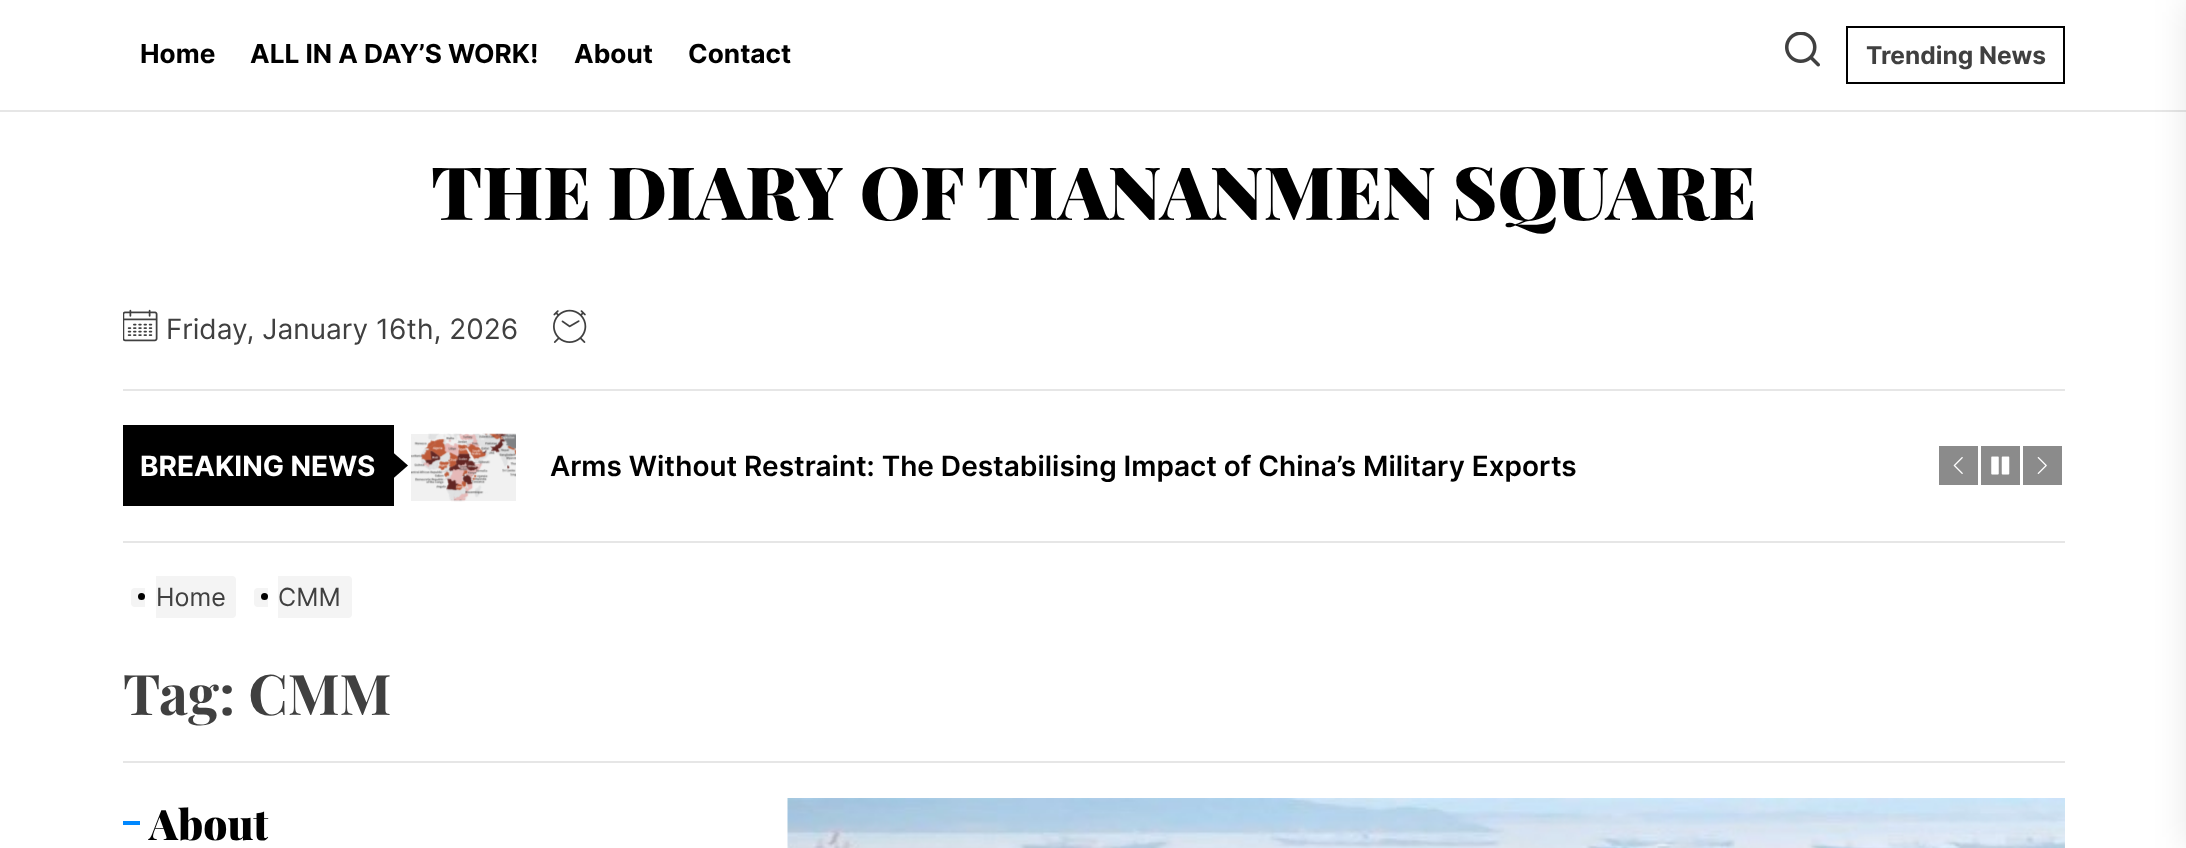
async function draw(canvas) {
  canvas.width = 2186;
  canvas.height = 848;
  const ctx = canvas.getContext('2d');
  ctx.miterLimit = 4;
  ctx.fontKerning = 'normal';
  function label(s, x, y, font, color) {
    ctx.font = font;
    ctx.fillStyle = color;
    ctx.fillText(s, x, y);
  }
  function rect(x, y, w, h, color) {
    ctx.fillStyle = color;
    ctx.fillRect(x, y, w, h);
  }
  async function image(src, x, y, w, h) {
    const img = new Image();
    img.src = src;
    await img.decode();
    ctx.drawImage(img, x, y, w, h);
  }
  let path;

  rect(0, 0, 2186, 848, '#fff');
  rect(0, 110, 2186, 2, '#e6e6e6');
  label('Home', 140, 63, 'bold 26.25px Inter', '#000');
  label('ALL IN A DAY’S WORK!', 250, 63, 'bold 26.25px Inter', '#000');
  label('About', 574, 63, 'bold 26.25px Inter', '#000');
  label('Contact', 688, 63, 'bold 26.25px Inter', '#000');
  await image('assets/img1.png', 1785, 32, 35, 35);
  ctx.strokeStyle = '#000';
  ctx.lineWidth = 2;
  ctx.strokeRect(1847, 27, 217, 56);
  label('Trending News', 1866, 64, 'bold 24.5px Inter', '#404040');
  label('THE DIARY OF TIANANMEN SQUARE', 431, 220, '900 73.5px Playfair Display', '#000');
  await image('assets/img2.png', 123, 309, 35, 33);
  label('Friday, January 16th, 2026', 166, 339, '28px Inter', '#404040');
  await image('assets/img3.png', 553, 309, 34, 34);
  rect(123, 389, 1942, 2, '#e6e6e6');
  rect(123, 425, 271, 81, '#000');
  label('BREAKING NEWS', 140, 476, 'bold 28px Inter', '#fff');
  ctx.fillStyle = '#000';
  path = new Path2D('M392 479.5V451.5L408 465.5Z');
  ctx.fill(path);
  rect(411, 434, 105, 67, '#f1f1f1');
  await image('assets/img4.png', 411, 433, 105, 69);
  label('Arms Without Restraint: The Destabilising Impact of China’s Military Exports', 550, 476, '600 28px Inter', '#000');
  rect(1939, 446, 39, 39, '#8b8b8b');
  await image('assets/img5.png', 1953, 457, 10, 17);
  rect(1981, 446, 39, 39, '#8b8b8b');
  await image('assets/img6.png', 1991, 456, 19, 19);
  rect(2023, 446, 39, 39, '#8b8b8b');
  await image('assets/img7.png', 2037, 457, 10, 17);
  rect(123, 541, 1942, 2, '#e6e6e6');
  ctx.fillStyle = '#0000001a';
  ctx.filter = 'blur(17.5px)';
  ctx.beginPath();
  ctx.rect(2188, 0, 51, 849);
  ctx.fill();
  ctx.filter = 'none';
  ctx.fillStyle = '#f4f4f4';
  ctx.beginPath();
  ctx.roundRect(131, 588, 14, 19, [4, 0, 0, 4]);
  ctx.fill();
  ctx.beginPath();
  ctx.roundRect(156, 576, 80, 42, [0, 4, 4, 0]);
  ctx.fill();
  ctx.fillStyle = '#000';
  ctx.beginPath();
  ctx.arc(141.5, 596.5, 3.5, 0, 2 * Math.PI);
  ctx.fill();
  label('Home', 156, 606, '25px Inter', '#404040');
  ctx.fillStyle = '#f4f4f4';
  ctx.beginPath();
  ctx.roundRect(254, 588, 14, 19, [4, 0, 0, 4]);
  ctx.fill();
  ctx.beginPath();
  ctx.roundRect(278, 576, 74, 42, [0, 4, 4, 0]);
  ctx.fill();
  ctx.fillStyle = '#000';
  ctx.beginPath();
  ctx.arc(264.5, 596.5, 3.5, 0, 2 * Math.PI);
  ctx.fill();
  label('CMM', 278, 606, '25px Inter', '#404040');
  label('Tag: CMM', 123, 715, 'bold 56px Playfair Display', '#404040');
  rect(123, 761, 1942, 2, '#e6e6e6');
  rect(123, 821, 17, 4, '#08f');
  label('About', 149, 840, '900 42px Playfair Display', '#000');
  await image('assets/img8.png', 787, 798, 1278, 50);
}

draw(document.querySelector('canvas'));
